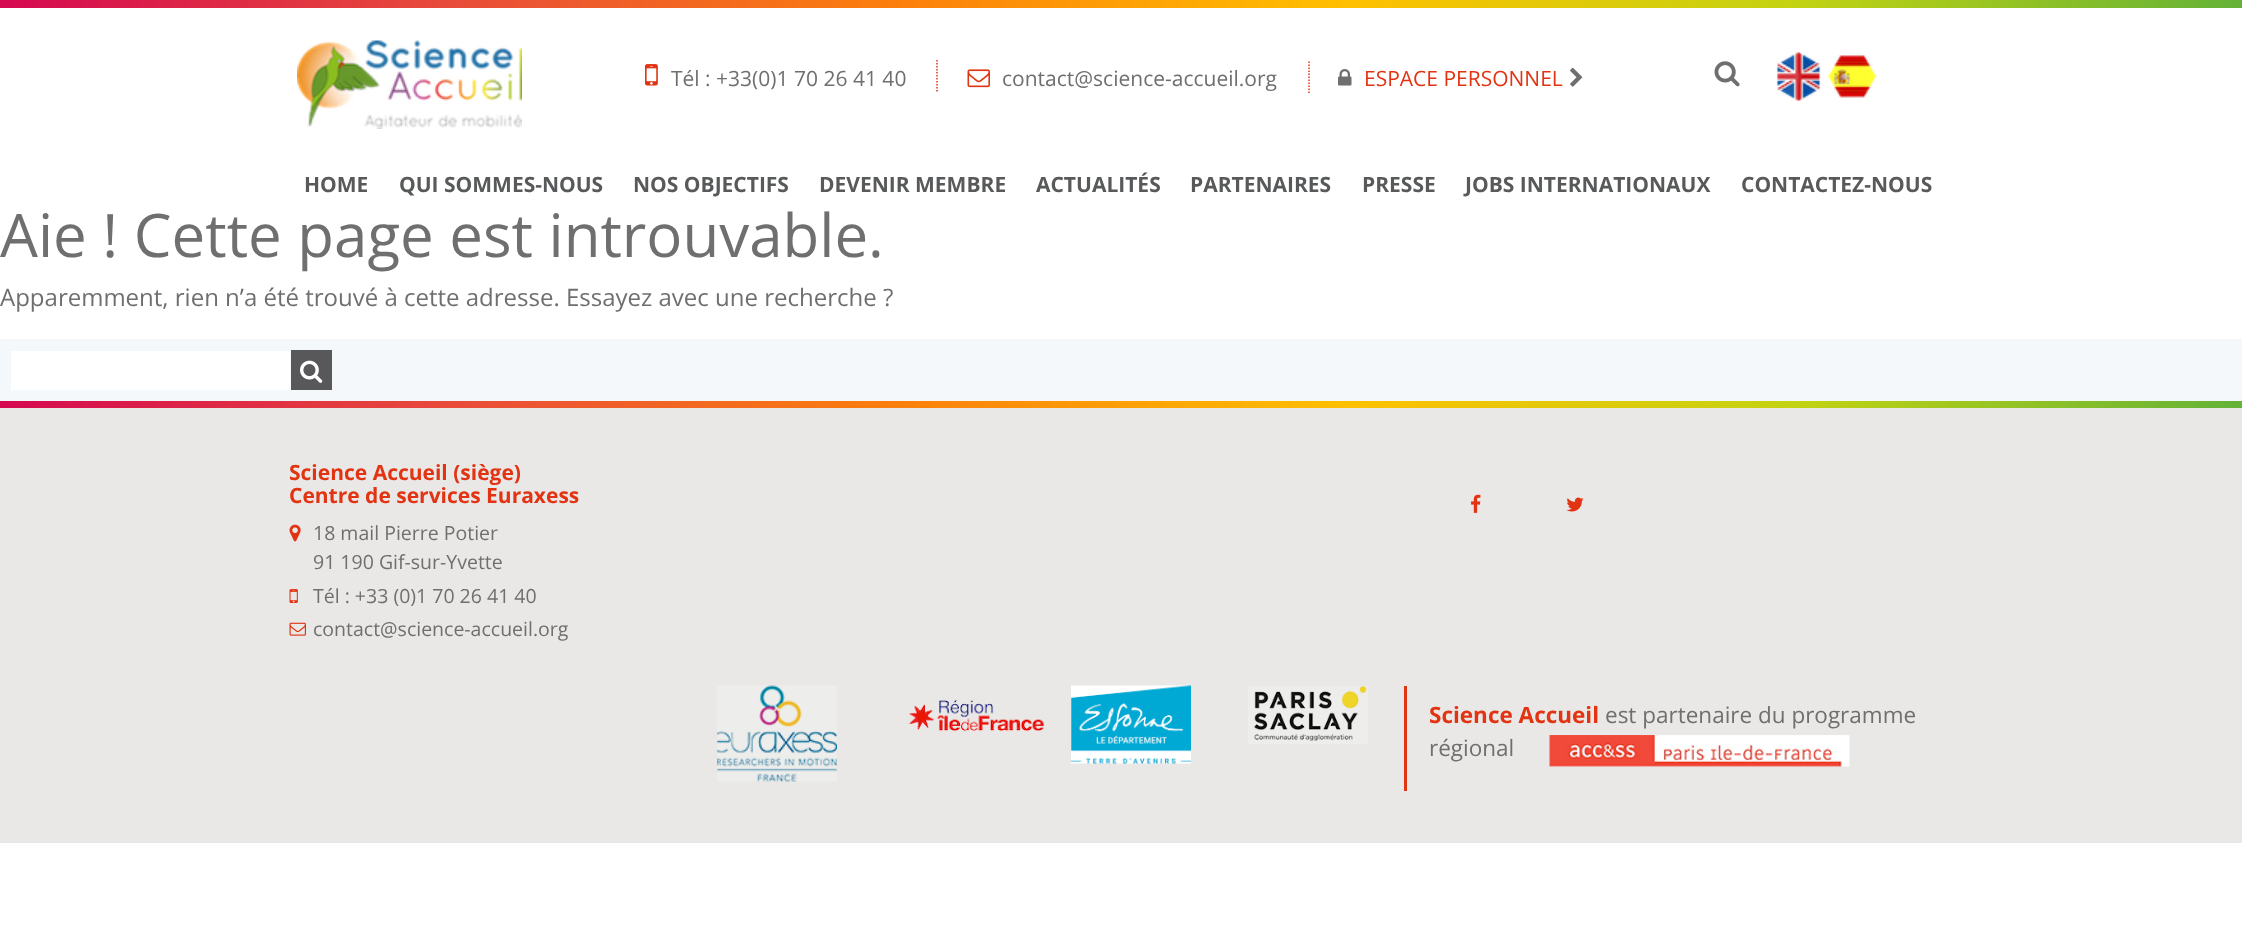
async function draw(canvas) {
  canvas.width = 2242;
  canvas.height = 932;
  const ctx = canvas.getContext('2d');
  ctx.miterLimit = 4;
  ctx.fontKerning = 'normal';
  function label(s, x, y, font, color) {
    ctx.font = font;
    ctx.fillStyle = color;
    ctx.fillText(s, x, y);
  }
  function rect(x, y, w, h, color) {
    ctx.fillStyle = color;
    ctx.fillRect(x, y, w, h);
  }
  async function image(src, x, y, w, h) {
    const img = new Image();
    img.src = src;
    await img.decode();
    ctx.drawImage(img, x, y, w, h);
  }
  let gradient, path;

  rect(0, 0, 2242, 932, '#fff');
  gradient = ctx.createLinearGradient(0, 3.8, 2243, 3.7);
  gradient.addColorStop(0, '#d50851');
  gradient.addColorStop(0.2, '#e84b3a');
  gradient.addColorStop(0.4, '#fc7f0c');
  gradient.addColorStop(0.6, '#ffc000');
  gradient.addColorStop(0.8, '#c3d312');
  gradient.addColorStop(1, '#63b237');
  ctx.fillStyle = gradient;
  ctx.fillRect(0, 0, 2242, 8);
  await image('assets/img1.png', 297, 40, 225, 89);
  path = new Path2D('M937 60V93');
  ctx.strokeStyle = '#e23412';
  ctx.lineWidth = 1.5;
  ctx.setLineDash([1.5, 1.5]);
  ctx.stroke(path);
  await image('assets/img2.png', 645, 64, 13, 22);
  label('Tél : +33(0)1 70 26 41 40', 671, 86, '21px Open Sans', '#6f6f6f');
  path = new Path2D('M1309 61.5V93');
  ctx.stroke(path);
  await image('assets/img3.png', 967, 69, 23, 19);
  label('contact@science-accueil.org', 1002, 86, '21px Open Sans', '#6f6f6f');
  await image('assets/img4.png', 1338, 69, 14, 17);
  label('ESPACE PERSONNEL', 1364, 86, '21px Open Sans', '#e23412');
  await image('assets/img5.png', 1570, 67, 13, 20);
  await image('assets/img6.png', 1714, 61, 26, 26);
  await image('assets/img7.png', 1776, 52, 45, 49);
  await image('assets/img8.png', 1828, 55, 49, 43);
  label('HOME', 304, 192, 'bold 21px Open Sans', '#58595a');
  label('QUI SOMMES-NOUS', 399, 192, 'bold 21px Open Sans', '#58595a');
  label('NOS OBJECTIFS', 633, 192, 'bold 21px Open Sans', '#58595a');
  label('DEVENIR MEMBRE', 819, 192, 'bold 21px Open Sans', '#58595a');
  label('ACTUALITÉS', 1036, 192, 'bold 21px Open Sans', '#58595a');
  label('PARTENAIRES', 1190, 192, 'bold 21px Open Sans', '#58595a');
  label('PRESSE', 1362, 192, 'bold 21px Open Sans', '#58595a');
  label('JOBS INTERNATIONAUX', 1465, 192, 'bold 21px Open Sans', '#58595a');
  label('CONTACTEZ-NOUS', 1741, 192, 'bold 21px Open Sans', '#58595a');
  label('Aie ! Cette page est introuvable.', 0, 257, '60px Open Sans', '#6f6f6f');
  label('Apparemment, rien n’a été trouvé à cette adresse. Essayez avec une recherche ?', 0, 306, '24px Open Sans', '#6f6f6f');
  rect(0, 339, 2242, 62, '#f4f8fa');
  rect(11, 351, 279, 39, '#fff');
  rect(291, 350, 41, 40, '#58585a');
  await image('assets/img9.png', 300, 360, 23, 23);
  gradient = ctx.createLinearGradient(0, 404, 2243, 404);
  gradient.addColorStop(0, '#d50851');
  gradient.addColorStop(0.2, '#e84b3a');
  gradient.addColorStop(0.4, '#fc7f0c');
  gradient.addColorStop(0.6, '#ffc000');
  gradient.addColorStop(0.8, '#c3d312');
  gradient.addColorStop(1, '#63b237');
  ctx.fillStyle = gradient;
  ctx.fillRect(0, 401, 2242, 7);
  rect(0, 408, 2242, 435, '#e9e8e6');
  label('Science Accueil (siège)', 289, 480, 'bold 21px Open Sans', '#e23412');
  label('Centre de services Euraxess', 289, 503, 'bold 21px Open Sans', '#e23412');
  await image('assets/img10.png', 289, 524, 12, 18);
  label('18 mail Pierre Potier', 313, 540, '19.5px Open Sans', '#6f6f6f');
  label('91 190 Gif-sur-Yvette', 313, 569, '19.5px Open Sans', '#6f6f6f');
  await image('assets/img11.png', 289, 589, 9, 14);
  label('Tél : +33 (0)1 70 26 41 40', 313, 603, '19.5px Open Sans', '#6f6f6f');
  await image('assets/img12.png', 289, 622, 17, 14);
  label('contact@science-accueil.org', 313, 636, '19.5px Open Sans', '#6f6f6f');
  await image('assets/img13.png', 1471, 494, 10, 19);
  await image('assets/img14.png', 1566, 497, 18, 15);
  rect(1404, 686, 3, 105, '#e23412');
  await image('assets/img15.png', 717, 685, 120, 97);
  await image('assets/img16.png', 909, 700, 136, 32);
  await image('assets/img17.png', 1071, 685, 120, 79);
  await image('assets/img18.png', 1248, 686, 120, 58);
  label('Science Accueil', 1429, 723, 'bold 22.5px Open Sans', '#e23412');
  label('est partenaire du programme', 1605, 723, '22.5px Open Sans', '#6f6f6f');
  label('régional', 1429, 756, '22.5px Open Sans', '#6f6f6f');
  await image('assets/img19.png', 1549, 735, 301, 32);
}

draw(document.querySelector('canvas'));
